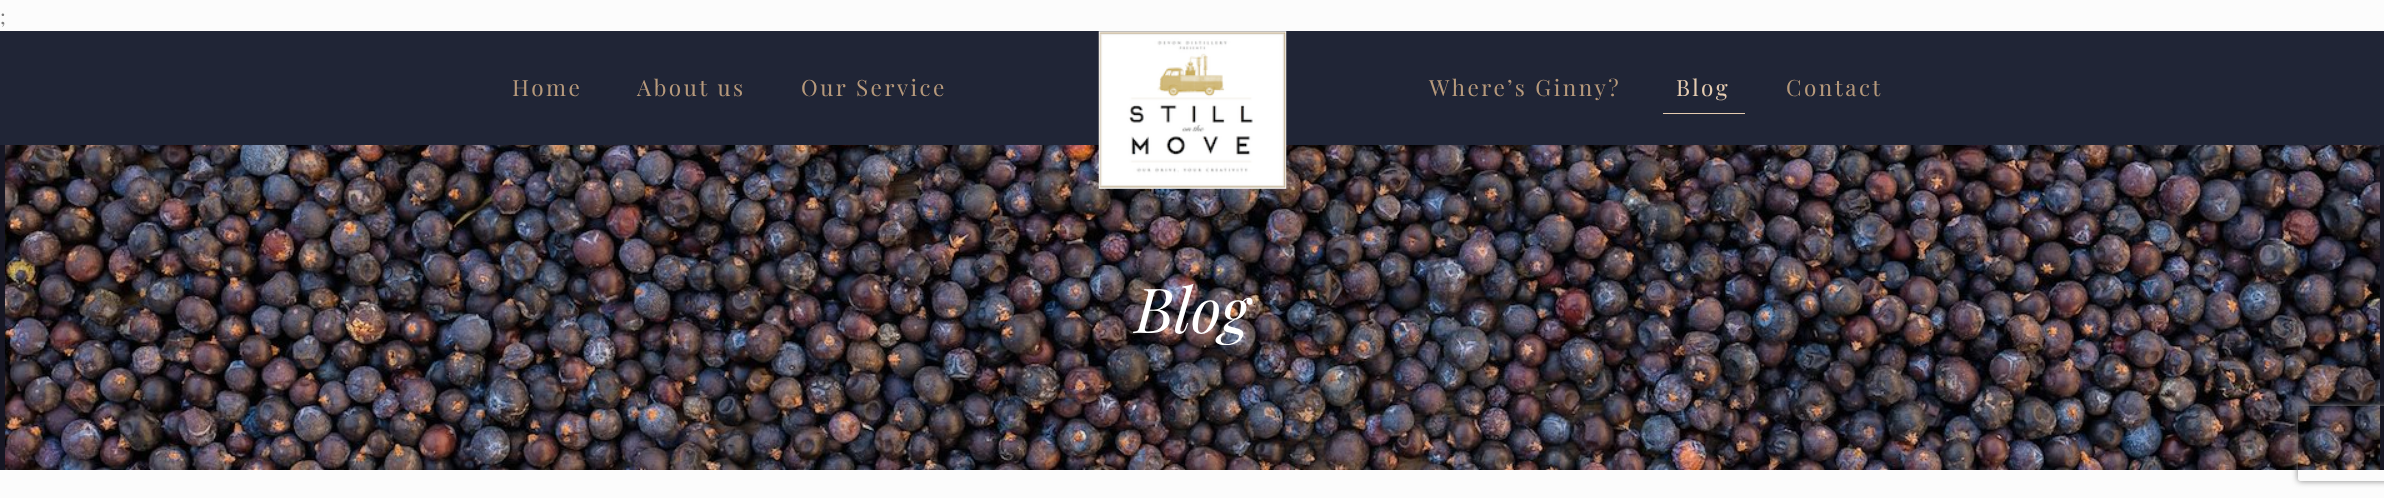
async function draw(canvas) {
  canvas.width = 2384;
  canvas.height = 498;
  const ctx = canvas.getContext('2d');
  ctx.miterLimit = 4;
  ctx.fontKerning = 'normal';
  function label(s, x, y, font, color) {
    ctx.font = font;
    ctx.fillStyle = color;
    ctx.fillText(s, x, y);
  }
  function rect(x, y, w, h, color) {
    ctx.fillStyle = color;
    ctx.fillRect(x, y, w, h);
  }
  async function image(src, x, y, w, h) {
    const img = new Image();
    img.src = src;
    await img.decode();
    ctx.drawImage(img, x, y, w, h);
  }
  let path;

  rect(0, 0, 2384, 498, '#fcfcfc');
  label(';', 0, 24, '20px Playfair Display', '#7d7d7d');
  rect(0, 145, 2384, 325, '#161623');
  await image('assets/img1.png', 5, 145, 2375, 325);
  rect(0, 31, 2384, 114, '#202536');
  await image('assets/img2.png', 1098, 31, 189, 158);
  ctx.letterSpacing = '2.5px';
  label('Home', 512, 96, '22.5px Playfair Display', '#b6997b');
  label('About us', 637, 96, '22.5px Playfair Display', '#b6997b');
  label('Our Service', 801, 96, '22.5px Playfair Display', '#b6997b');
  label('Where’s Ginny?', 1429, 96, '22.5px Playfair Display', '#b6997b');
  label('Blog', 1676, 96, '22.5px Playfair Display', '#e5ccb1');
  rect(1663, 113, 82, 1, '#e5ccb1');
  label('Contact', 1786, 96, '22.5px Playfair Display', '#b6997b');
  ctx.letterSpacing = '0px';
  label('Blog', 1135, 333, 'italic 62px Playfair Display', '#fff');
  ctx.save();
  path = new Path2D('M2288 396H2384V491H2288ZM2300.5 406H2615.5C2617 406 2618 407 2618 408.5V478.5C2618 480 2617 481 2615.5 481H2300.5C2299 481 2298 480 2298 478.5V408.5C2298 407 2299 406 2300.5 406Z');
  ctx.clip(path, 'evenodd');
  ctx.fillStyle = '#808080';
  ctx.filter = 'blur(3px)';
  ctx.beginPath();
  ctx.roundRect(2298, 406, 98, 75, 2.5);
  ctx.fill();
  ctx.filter = 'none';
  ctx.restore();
}

draw(document.querySelector('canvas'));
